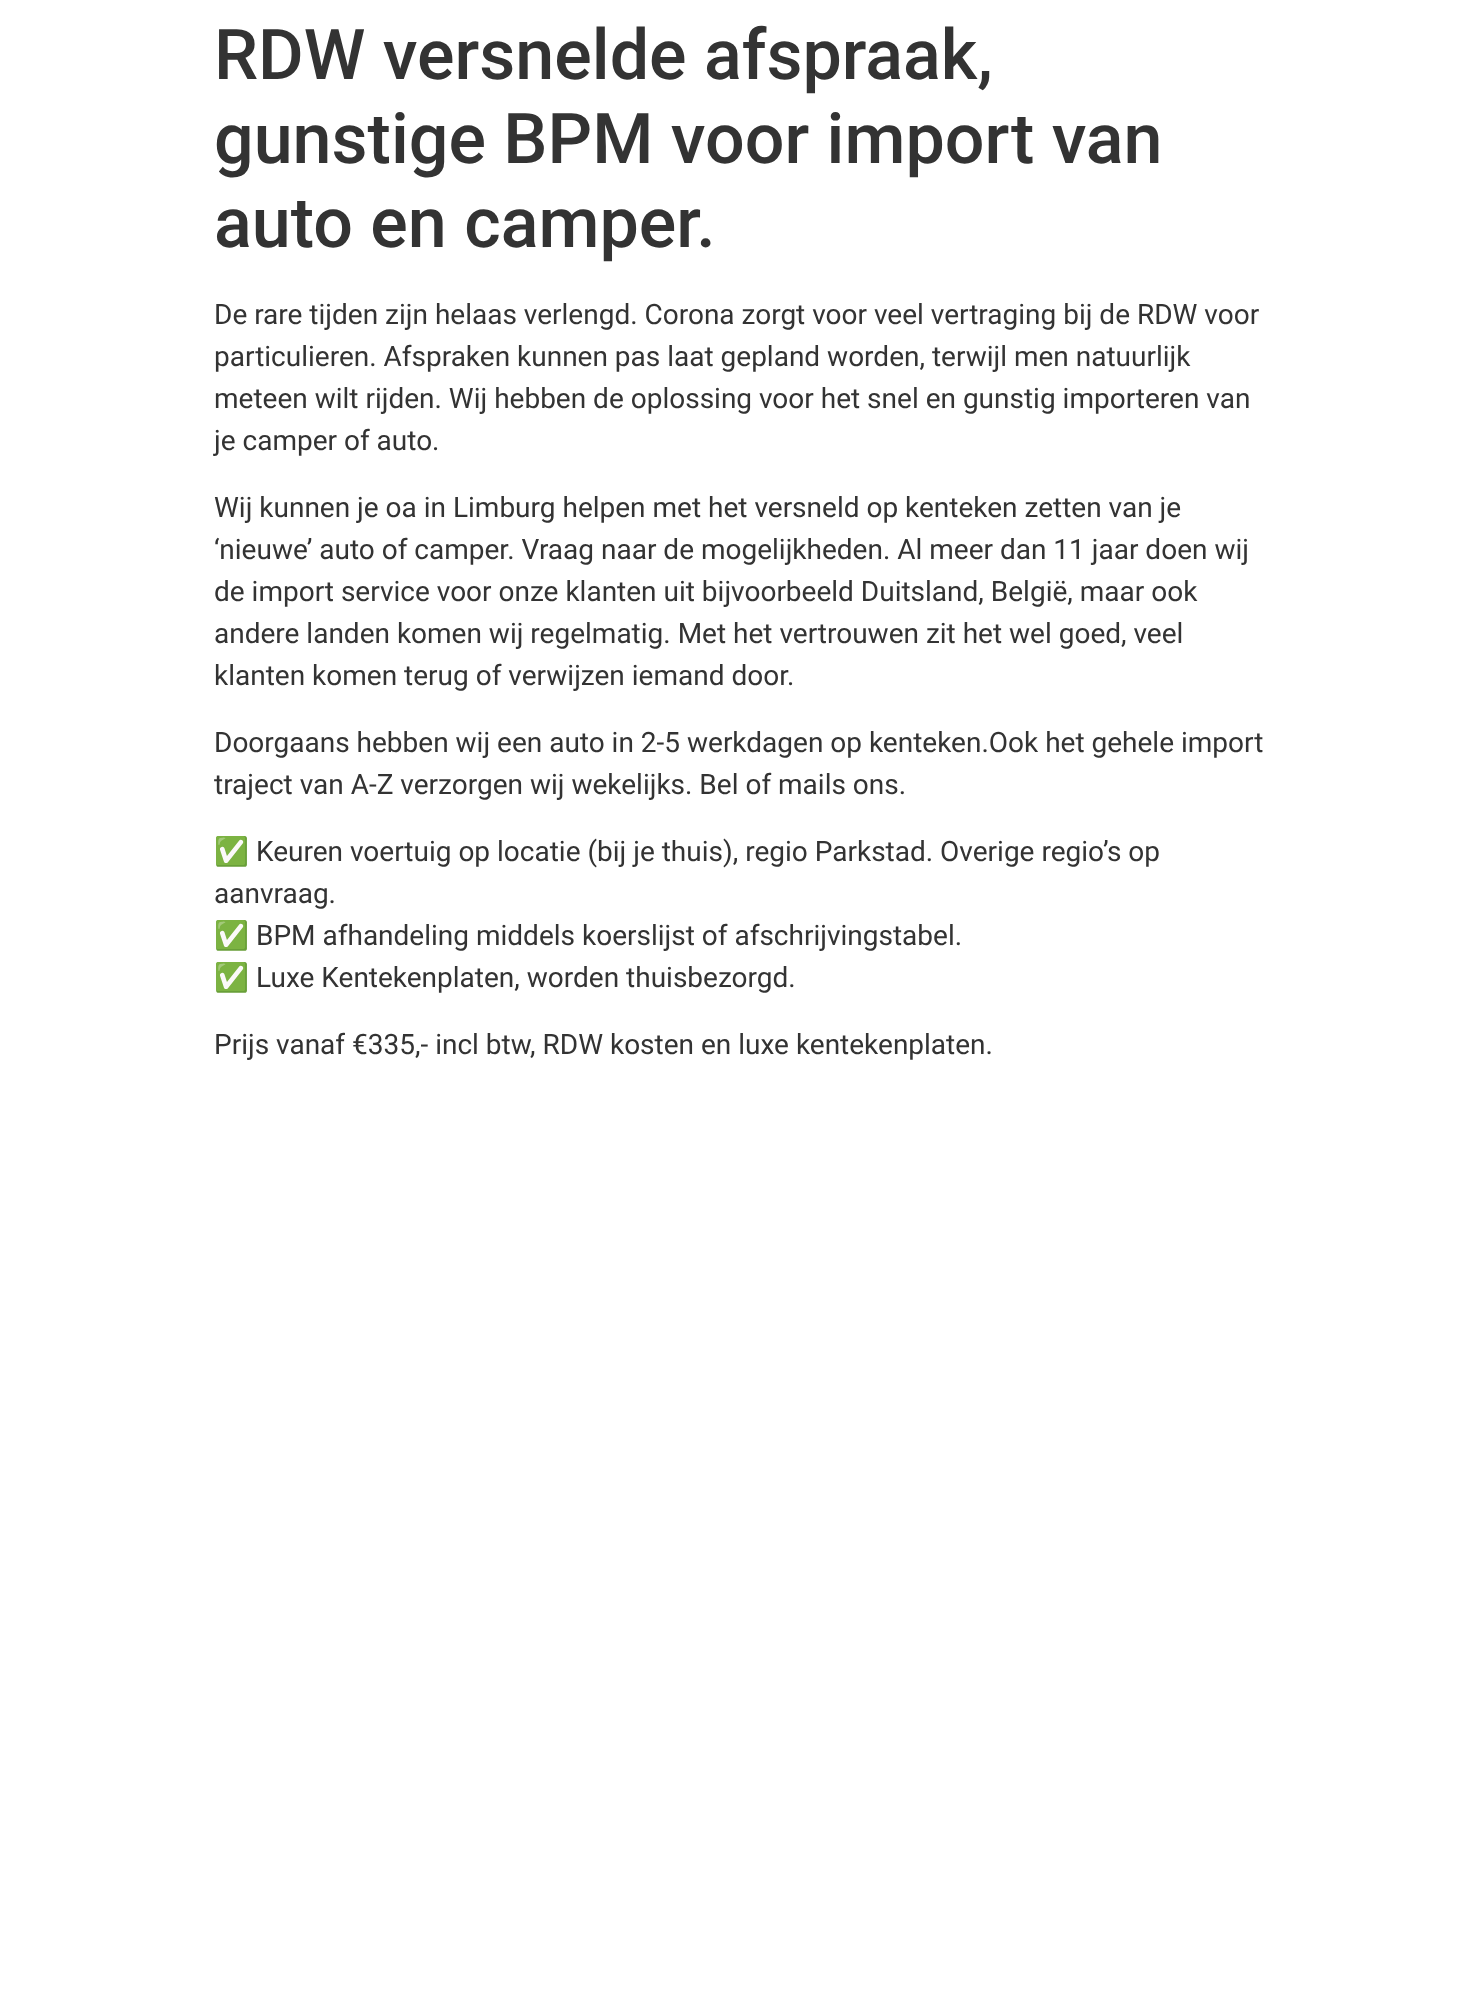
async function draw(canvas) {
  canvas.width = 1478;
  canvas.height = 2011;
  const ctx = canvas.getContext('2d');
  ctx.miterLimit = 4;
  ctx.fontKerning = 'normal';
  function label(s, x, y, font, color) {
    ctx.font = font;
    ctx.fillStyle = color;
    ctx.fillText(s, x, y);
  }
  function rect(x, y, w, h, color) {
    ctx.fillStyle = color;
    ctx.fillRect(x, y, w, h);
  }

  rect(0, 0, 1478, 2011, '#fff');
  label('RDW versnelde afspraak,', 214, 79, '500 70px Roboto', '#333');
  label('gunstige BPM voor import van', 214, 163, '500 70px Roboto', '#333');
  label('auto en camper.', 214, 247, '500 70px Roboto', '#333');
  label('De rare tijden zijn helaas verlengd. Corona zorgt voor veel vertraging bij de RDW voor', 214, 324, '28px Roboto', '#333');
  label('particulieren. Afspraken kunnen pas laat gepland worden, terwijl men natuurlijk', 214, 366, '28px Roboto', '#333');
  label('meteen wilt rijden. Wij hebben de oplossing voor het snel en gunstig importeren van', 214, 408, '28px Roboto', '#333');
  label('je camper of auto.', 214, 450, '28px Roboto', '#333');
  label('Wij kunnen je oa in Limburg helpen met het versneld op kenteken zetten van je', 214, 517, '28px Roboto', '#333');
  label('‘nieuwe’ auto of camper. Vraag naar de mogelijkheden. Al meer dan 11 jaar doen wij', 214, 559, '28px Roboto', '#333');
  label('de import service voor onze klanten uit bijvoorbeeld Duitsland, België, maar ook', 214, 601, '28px Roboto', '#333');
  label('andere landen komen wij regelmatig. Met het vertrouwen zit het wel goed, veel', 214, 643, '28px Roboto', '#333');
  label('klanten komen terug of verwijzen iemand door.', 214, 685, '28px Roboto', '#333');
  label('Doorgaans hebben wij een auto in 2-5 werkdagen op kenteken.Ook het gehele import', 214, 752, '28px Roboto', '#333');
  label('traject van A-Z verzorgen wij wekelijks. Bel of mails ons.', 214, 794, '28px Roboto', '#333');
  label('✅', 214, 861, '28px Noto Color Emoji', '#333');
  label('Keuren voertuig op locatie (bij je thuis), regio Parkstad. Overige regio’s op', 256, 861, '28px Roboto', '#333');
  label('aanvraag.', 214, 903, '28px Roboto', '#333');
  label('✅', 214, 945, '28px Noto Color Emoji', '#333');
  label('BPM afhandeling middels koerslijst of afschrijvingstabel.', 256, 945, '28px Roboto', '#333');
  label('✅', 214, 987, '28px Noto Color Emoji', '#333');
  label('Luxe Kentekenplaten, worden thuisbezorgd.', 256, 987, '28px Roboto', '#333');
  label('Prijs vanaf €335,- incl btw, RDW kosten en luxe kentekenplaten.', 214, 1054, '28px Roboto', '#333');
}

draw(document.querySelector('canvas'));
